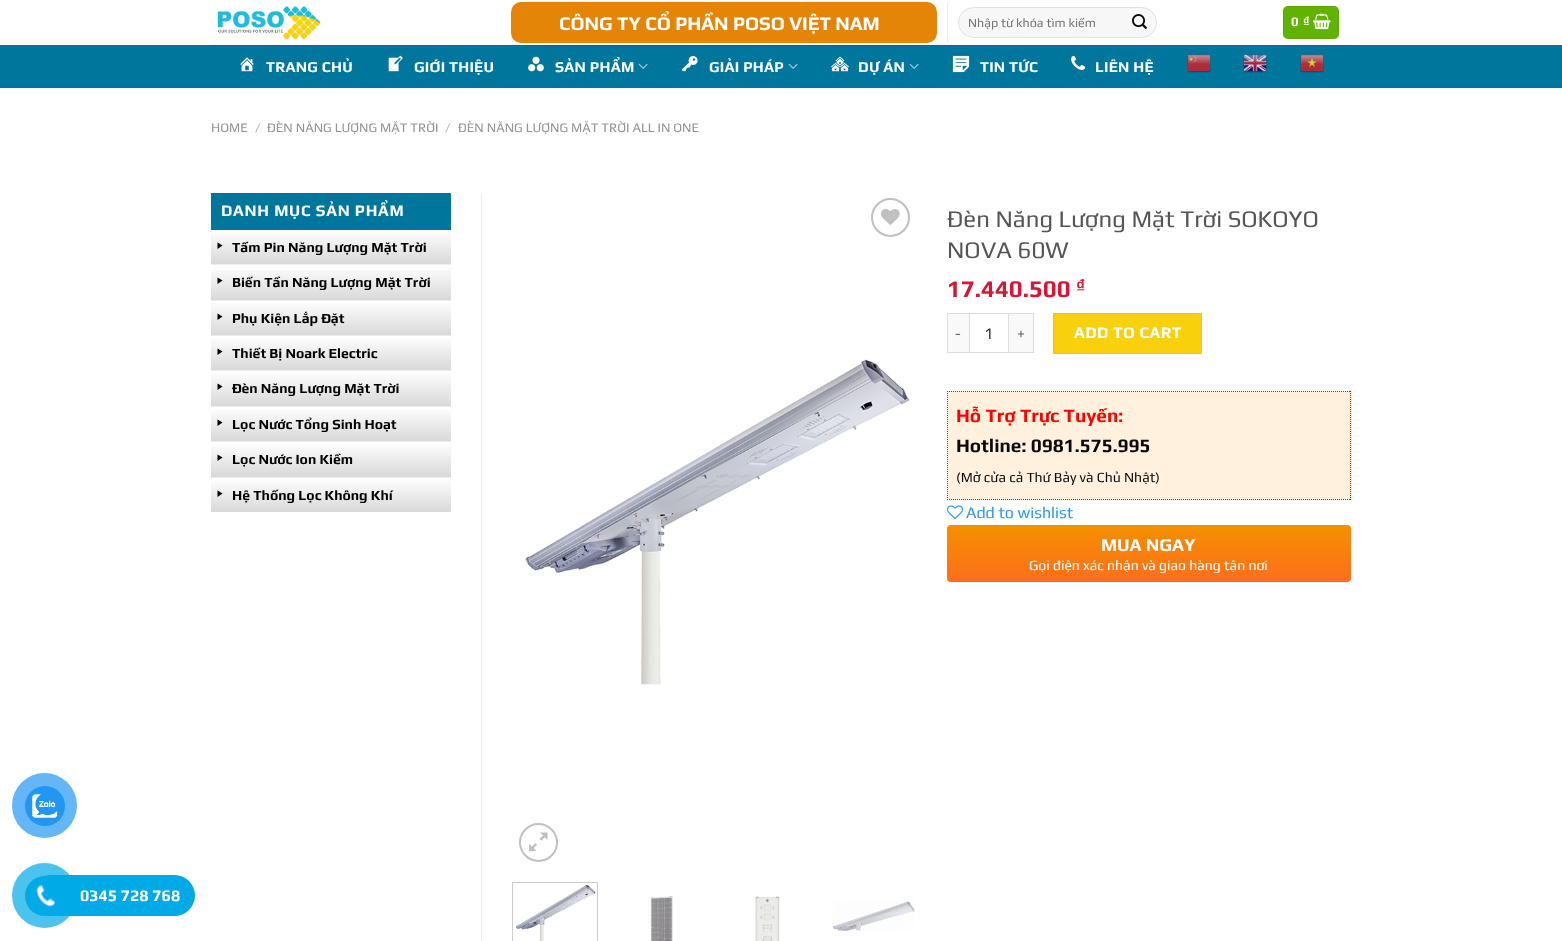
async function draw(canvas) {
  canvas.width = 1562;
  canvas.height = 941;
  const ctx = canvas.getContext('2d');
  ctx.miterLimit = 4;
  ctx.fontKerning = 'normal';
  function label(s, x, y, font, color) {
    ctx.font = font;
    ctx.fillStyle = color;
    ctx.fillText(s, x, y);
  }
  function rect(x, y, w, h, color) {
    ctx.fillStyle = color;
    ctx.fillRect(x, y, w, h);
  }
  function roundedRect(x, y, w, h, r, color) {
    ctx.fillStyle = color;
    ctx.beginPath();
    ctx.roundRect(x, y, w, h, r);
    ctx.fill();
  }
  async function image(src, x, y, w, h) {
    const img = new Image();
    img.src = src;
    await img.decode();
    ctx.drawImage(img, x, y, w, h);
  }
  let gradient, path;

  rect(0, 0, 1562, 941, '#fff');
  await image('assets/img1.png', 217, 6, 104, 34);
  roundedRect(511, 2, 426, 41, 10, '#e48508');
  label('CÔNG TY CỔ PHẦN POSO VIỆT NAM', 559, 30, 'bold 19.25px Play', '#fff');
  rect(947, 2, 1, 41, '#ececec');
  ctx.fillStyle = '#f7f7f7';
  ctx.beginPath();
  ctx.roundRect(958.5, 7.5, 198, 30, 15);
  ctx.fill();
  ctx.strokeStyle = '#e1e1e1';
  ctx.stroke();
  label('Nhập từ khóa tìm kiếm', 968, 27, '12.5px Play', '#757575');
  await image('assets/img2.png', 1132, 14, 15, 15);
  roundedRect(1283, 6, 56, 33, 5, '#60b301');
  ctx.strokeStyle = '#0000000d';
  ctx.strokeRect(1283.5, 6.5, 55, 32);
  label('0', 1291, 26, 'bold 13px Play', '#fff');
  label('₫', 1303, 26, 'bold 13px Liberation Sans', '#fff');
  await image('assets/img3.png', 1313, 13, 18, 17);
  rect(0, 45, 1562, 43, '#00769c');
  rect(211, 45, 1140, 1, '#016b8d');
  await image('assets/img4.png', 240, 57, 14, 15);
  ctx.letterSpacing = '0.25px';
  label('TRANG CHỦ', 266, 72, 'bold 15px Play', '#fff');
  await image('assets/img5.png', 388, 55, 15, 17);
  label('GIỚI THIỆU', 414, 72, 'bold 15px Play', '#fff');
  await image('assets/img6.png', 528, 56, 16, 16);
  label('SẢN PHẨM', 555, 72, 'bold 15px Play', '#fff');
  await image('assets/img7.png', 638, 63, 10, 6);
  await image('assets/img8.png', 682, 56, 16, 16);
  label('GIẢI PHÁP', 709, 72, 'bold 15px Play', '#fff');
  await image('assets/img7.png', 788, 63, 10, 6);
  await image('assets/img9.png', 831, 56, 18, 16);
  label('DỰ ÁN', 858, 72, 'bold 15px Play', '#fff');
  await image('assets/img7.png', 909, 63, 10, 6);
  await image('assets/img10.png', 952, 55, 18, 18);
  label('TIN TỨC', 980, 72, 'bold 15px Play', '#fff');
  await image('assets/img11.png', 1071, 55, 15, 15);
  label('LIÊN HỆ', 1095, 72, 'bold 15px Play', '#fff');
  await image('assets/img12.png', 1187, 54, 24, 19);
  await image('assets/img13.png', 1243, 54, 24, 19);
  await image('assets/img14.png', 1300, 54, 24, 19);
  ctx.letterSpacing = '0px';
  label('HOME', 211, 132, '13px Play', '#949494');
  label('/', 255, 132, '13px Play', '#b2b2b2');
  label('ĐÈN NĂNG LƯỢNG MẶT TRỜI', 267, 132, '13px Play', '#949494');
  label('/', 445, 132, '13px Play', '#b2b2b2');
  label('ĐÈN NĂNG LƯỢNG MẶT TRỜI ALL IN ONE', 458, 132, '13px Play', '#949494');
  rect(211, 193, 240, 37, '#00769c');
  ctx.letterSpacing = '0.75px';
  label('DANH MỤC SẢN PHẨM', 221, 216, 'bold 16px Play', '#fff');
  gradient = ctx.createLinearGradient(331, 230, 331, 264);
  gradient.addColorStop(0, '#fff');
  gradient.addColorStop(1, '#d8d8d8');
  ctx.fillStyle = gradient;
  ctx.fillRect(211, 232, 240, 32);
  ctx.fillStyle = '#000';
  path = new Path2D('M217.5 242.5L222.5 245.5L217.5 249Z');
  ctx.fill(path);
  ctx.letterSpacing = '0px';
  label('Tấm Pin Năng Lượng Mặt Trời', 232, 252, 'bold 14px Play', '#000');
  rect(211, 264, 240, 1, '#ececec');
  gradient = ctx.createLinearGradient(331, 265, 331, 300);
  gradient.addColorStop(0, '#fff');
  gradient.addColorStop(1, '#d8d8d8');
  ctx.fillStyle = gradient;
  ctx.fillRect(211, 267, 240, 33);
  ctx.fillStyle = '#000';
  path = new Path2D('M217.5 277.5L222.5 280.5L217.5 284Z');
  ctx.fill(path);
  label('Biến Tần Năng Lượng Mặt Trời', 232, 287, 'bold 14px Play', '#000');
  rect(211, 300, 240, 1, '#ececec');
  gradient = ctx.createLinearGradient(331, 301, 331, 335);
  gradient.addColorStop(0, '#fff');
  gradient.addColorStop(1, '#d8d8d8');
  ctx.fillStyle = gradient;
  ctx.fillRect(211, 303, 240, 32);
  ctx.fillStyle = '#000';
  path = new Path2D('M217.5 313.5L222.5 316.5L217.5 320Z');
  ctx.fill(path);
  label('Phụ Kiện Lắp Đặt', 232, 323, 'bold 14px Play', '#000');
  rect(211, 335, 240, 1, '#ececec');
  gradient = ctx.createLinearGradient(331, 336, 331, 370);
  gradient.addColorStop(0, '#fff');
  gradient.addColorStop(1, '#d8d8d8');
  ctx.fillStyle = gradient;
  ctx.fillRect(211, 338, 240, 32);
  ctx.fillStyle = '#000';
  path = new Path2D('M217.5 348.5L222.5 351.5L217.5 355Z');
  ctx.fill(path);
  label('Thiết Bị Noark Electric', 232, 358, 'bold 14px Play', '#000');
  rect(211, 370, 240, 1, '#ececec');
  gradient = ctx.createLinearGradient(331, 371, 331, 406);
  gradient.addColorStop(0, '#fff');
  gradient.addColorStop(1, '#d8d8d8');
  ctx.fillStyle = gradient;
  ctx.fillRect(211, 373, 240, 33);
  ctx.fillStyle = '#000';
  path = new Path2D('M217.5 383.5L222.5 386.5L217.5 390Z');
  ctx.fill(path);
  label('Đèn Năng Lượng Mặt Trời', 232, 393, 'bold 14px Play', '#000');
  rect(211, 406, 240, 1, '#ececec');
  gradient = ctx.createLinearGradient(331, 407, 331, 441);
  gradient.addColorStop(0, '#fff');
  gradient.addColorStop(1, '#d8d8d8');
  ctx.fillStyle = gradient;
  ctx.fillRect(211, 409, 240, 32);
  ctx.fillStyle = '#000';
  path = new Path2D('M217.5 419.5L222.5 422.5L217.5 426Z');
  ctx.fill(path);
  label('Lọc Nước Tổng Sinh Hoạt', 232, 429, 'bold 14px Play', '#000');
  rect(211, 441, 240, 1, '#ececec');
  gradient = ctx.createLinearGradient(331, 442, 331, 477);
  gradient.addColorStop(0, '#fff');
  gradient.addColorStop(1, '#d8d8d8');
  ctx.fillStyle = gradient;
  ctx.fillRect(211, 444, 240, 33);
  ctx.fillStyle = '#000';
  path = new Path2D('M217.5 454.5L222.5 457.5L217.5 461Z');
  ctx.fill(path);
  label('Lọc Nước Ion Kiềm', 232, 464, 'bold 14px Play', '#000');
  rect(211, 477, 240, 1, '#ececec');
  gradient = ctx.createLinearGradient(331, 478, 331, 512);
  gradient.addColorStop(0, '#fff');
  gradient.addColorStop(1, '#d8d8d8');
  ctx.fillStyle = gradient;
  ctx.fillRect(211, 480, 240, 32);
  ctx.fillStyle = '#000';
  path = new Path2D('M217.5 490.5L222.5 493.5L217.5 497Z');
  ctx.fill(path);
  label('Hệ Thống Lọc Không Khí', 232, 500, 'bold 14px Play', '#000');
  rect(481, 193, 1, 748, '#ececec');
  ctx.beginPath();
  ctx.arc(890.5, 217.5, 18.5, 0, 2 * Math.PI);
  ctx.strokeStyle = '#c0c0c0';
  ctx.lineWidth = 2;
  ctx.stroke();
  await image('assets/img15.png', 881, 209, 19, 16);
  await image('assets/img16.png', 525, 359, 385, 326);
  ctx.beginPath();
  ctx.arc(538.5, 842.5, 18.5, 0, 2 * Math.PI);
  ctx.stroke();
  await image('assets/img17.png', 529, 832, 19, 20);
  ctx.strokeStyle = '#ccc';
  ctx.lineWidth = 1;
  ctx.strokeRect(512.5, 882.5, 85, 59);
  await image('assets/img18.png', 516, 885, 80, 56);
  await image('assets/img19.png', 650, 895, 23, 46);
  await image('assets/img20.png', 755, 896, 25, 45);
  await image('assets/img21.png', 832, 901, 83, 30);
  label('Đèn Năng Lượng Mặt Trời SOKOYO', 947, 227, '24px Play', '#555');
  label('NOVA 60W', 947, 258, '24px Play', '#555');
  label('17.440.500', 947, 297, 'bold 24px Play', '#d41836');
  label('₫', 1076, 292, 'bold 18px Liberation Sans', '#d41836');
  rect(948, 314, 21, 38, '#f9f9f9');
  rect(947, 313, 22, 1, '#ddd');
  rect(947, 352, 22, 1, '#ddd');
  rect(947, 313, 1, 40, '#ddd');
  label('-', 955, 339, '16px Play', '#666');
  ctx.strokeStyle = '#ddd';
  ctx.strokeRect(969.5, 313.5, 39, 39);
  label('1', 984, 339, '16px Play', '#333');
  rect(1009, 314, 24, 38, '#f9f9f9');
  rect(1009, 313, 25, 1, '#ddd');
  rect(1033, 313, 1, 40, '#ddd');
  rect(1009, 352, 25, 1, '#ddd');
  label('+', 1017, 339, '16px Play', '#666');
  ctx.fillStyle = '#f8d10c';
  ctx.beginPath();
  ctx.rect(1053.5, 313.5, 148, 40);
  ctx.fill();
  ctx.strokeStyle = '#ecc70b';
  ctx.stroke();
  ctx.letterSpacing = '0.5px';
  label('ADD TO CART', 1074, 338, 'bold 16px Play', '#fff');
  rect(947, 391, 404, 109, '#fff1dd');
  path = new Path2D('M947 391.5H1351');
  ctx.strokeStyle = '#f00';
  ctx.setLineDash([1, 1]);
  ctx.stroke(path);
  path = new Path2D('M1350.5 391V500');
  ctx.stroke(path);
  path = new Path2D('M947 499.5H1351');
  ctx.stroke(path);
  path = new Path2D('M947.5 391V500');
  ctx.stroke(path);
  ctx.letterSpacing = '0px';
  label('Hỗ Trợ Trực Tuyến:', 956, 422, 'bold 19px Play', '#f00');
  label('Hotline: 0981.575.995', 956, 452, 'bold 19px Play', '#0a0a0a');
  label('(Mở cửa cả Thứ Bảy và Chủ Nhật)', 956, 482, '14px Play', '#0a0a0a');
  await image('assets/img22.png', 947, 505, 16, 15);
  label('Add to wishlist', 966, 518, '16px Play', '#2a98f2');
  gradient = ctx.createLinearGradient(1149, 525, 1149, 582);
  gradient.addColorStop(0, '#f59000');
  gradient.addColorStop(1, '#fd6e1d');
  ctx.fillStyle = gradient;
  ctx.beginPath();
  ctx.roundRect(947, 525, 404, 57, 4);
  ctx.fill();
  label('MUA NGAY', 1101, 551, 'bold 18px Play', '#fff');
  label('Gọi điện xác nhận và giao hàng tận nơi', 1029, 570, '14px Play', '#fff');
  ctx.fillStyle = '#64b6f7';
  ctx.beginPath();
  ctx.arc(44.5, 805.5, 32.5, 0, 2 * Math.PI);
  ctx.fill();
  ctx.fillStyle = '#2196f3';
  ctx.beginPath();
  ctx.arc(45, 806, 20, 0, 2 * Math.PI);
  ctx.fill();
  await image('assets/img23.png', 32, 794, 26, 24);
  roundedRect(30, 875, 165, 41, 20.5, '#00aae7');
  ctx.fillStyle = '#00aae7b3';
  ctx.beginPath();
  ctx.arc(44.5, 895.5, 32.5, 0, 2 * Math.PI);
  ctx.fill();
  ctx.fillStyle = '#00aae7';
  ctx.beginPath();
  ctx.arc(45, 896, 20, 0, 2 * Math.PI);
  ctx.fill();
  await image('assets/img24.png', 36, 885, 19, 22);
  label('0345 728 768', 80, 901, 'bold 16px Play', '#fff');
}

draw(document.querySelector('canvas'));
